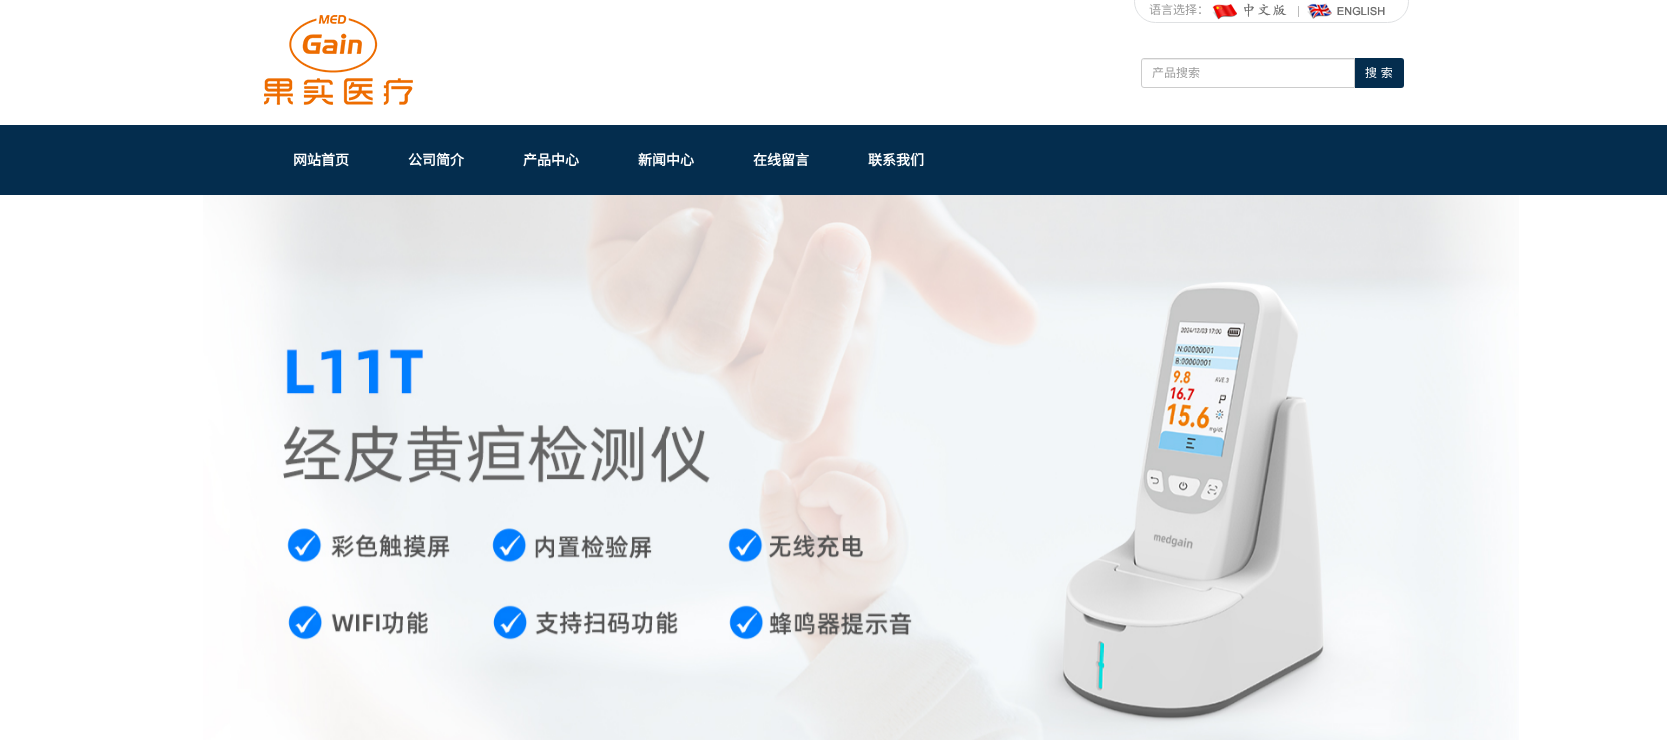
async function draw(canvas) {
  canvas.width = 1667;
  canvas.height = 740;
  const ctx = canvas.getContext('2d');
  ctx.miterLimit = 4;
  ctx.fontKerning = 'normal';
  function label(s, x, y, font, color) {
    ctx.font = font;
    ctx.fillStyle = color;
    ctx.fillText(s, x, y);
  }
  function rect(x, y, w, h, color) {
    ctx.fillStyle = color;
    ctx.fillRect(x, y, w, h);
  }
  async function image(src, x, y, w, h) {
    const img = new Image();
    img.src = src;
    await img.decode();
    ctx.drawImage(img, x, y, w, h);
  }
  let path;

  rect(0, 0, 1667, 740, '#fff');
  ctx.beginPath();
  ctx.roundRect(1134.5, -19.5, 274, 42, 21);
  ctx.strokeStyle = '#dfe1e3';
  ctx.stroke();
  label('语言选择：', 1149, 14, '12px Noto Sans CJK SC', '#9c9c9c');
  await image('assets/img1.png', 1212, 3, 75, 17);
  rect(1298, 6, 1, 11, '#bbb');
  await image('assets/img2.png', 1307, 3, 78, 16);
  await image('assets/img3.png', 264, 15, 149, 90);
  ctx.fillStyle = '#042d4e';
  ctx.beginPath();
  ctx.roundRect(1354, 58, 50, 30, [0, 3, 3, 0]);
  ctx.fill();
  ctx.fillStyle = '#fff';
  ctx.beginPath();
  ctx.roundRect(1141, 58, 214, 30, [3, 0, 0, 3]);
  ctx.fill();
  ctx.fillStyle = '#ececec';
  path = new Path2D('M1144 60H1354V59H1144L1143 60L1142 62C1142 61 1143 60 1144 60Z');
  ctx.fill(path);
  ctx.beginPath();
  ctx.roundRect(1141.5, 58.5, 213, 29, [2.5, 0, 0, 2.5]);
  ctx.strokeStyle = '#ccc';
  ctx.stroke();
  label('产品搜索', 1152, 77, '12px Noto Sans CJK SC', '#9c9c9c');
  ctx.wordSpacing = '1px';
  label('搜 索', 1365, 77, '12px Noto Sans CJK SC', '#fff');
  rect(0, 125, 1667, 70, '#042d4e');
  ctx.wordSpacing = '0px';
  label('网站首页', 293, 165, 'bold 14px Noto Sans CJK SC', '#fff');
  label('公司简介', 408, 165, 'bold 14px Noto Sans CJK SC', '#fff');
  label('产品中心', 523, 165, 'bold 14px Noto Sans CJK SC', '#fff');
  label('新闻中心', 638, 165, 'bold 14px Noto Sans CJK SC', '#fff');
  label('在线留言', 753, 165, 'bold 14px Noto Sans CJK SC', '#fff');
  label('联系我们', 868, 165, 'bold 14px Noto Sans CJK SC', '#fff');
  await image('assets/img4.png', 203, 195, 1316, 545);
}

draw(document.querySelector('canvas'));
